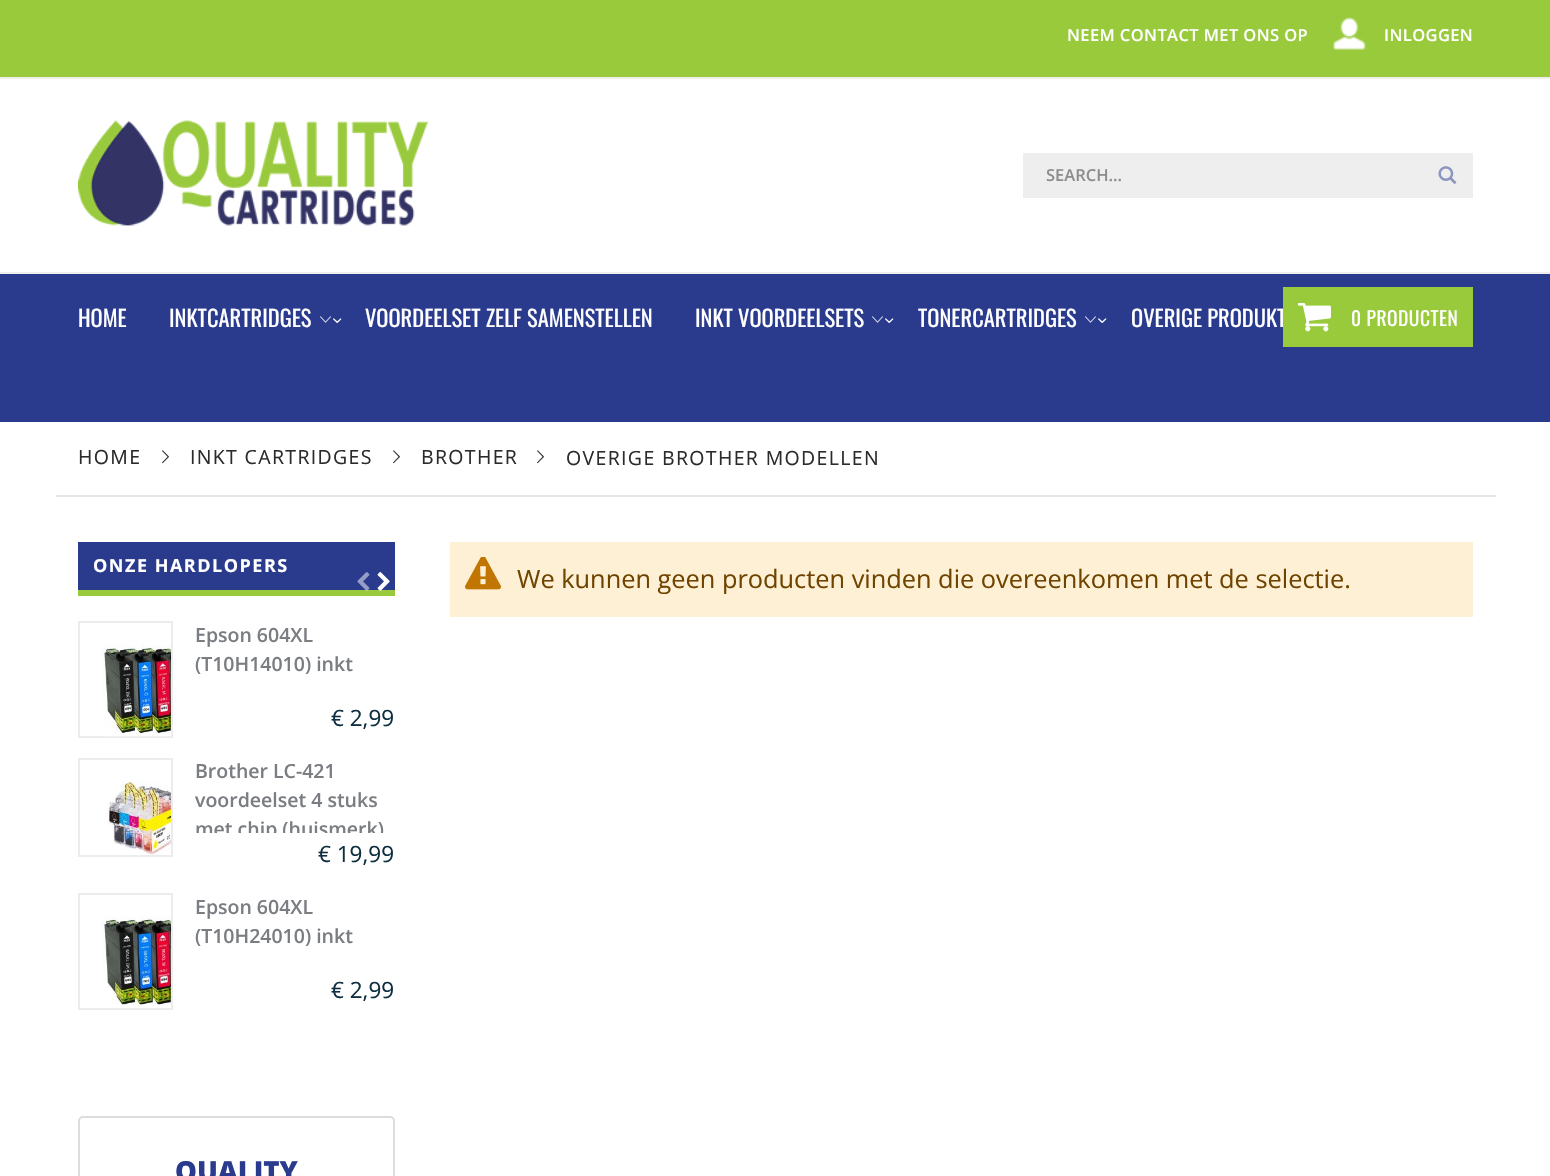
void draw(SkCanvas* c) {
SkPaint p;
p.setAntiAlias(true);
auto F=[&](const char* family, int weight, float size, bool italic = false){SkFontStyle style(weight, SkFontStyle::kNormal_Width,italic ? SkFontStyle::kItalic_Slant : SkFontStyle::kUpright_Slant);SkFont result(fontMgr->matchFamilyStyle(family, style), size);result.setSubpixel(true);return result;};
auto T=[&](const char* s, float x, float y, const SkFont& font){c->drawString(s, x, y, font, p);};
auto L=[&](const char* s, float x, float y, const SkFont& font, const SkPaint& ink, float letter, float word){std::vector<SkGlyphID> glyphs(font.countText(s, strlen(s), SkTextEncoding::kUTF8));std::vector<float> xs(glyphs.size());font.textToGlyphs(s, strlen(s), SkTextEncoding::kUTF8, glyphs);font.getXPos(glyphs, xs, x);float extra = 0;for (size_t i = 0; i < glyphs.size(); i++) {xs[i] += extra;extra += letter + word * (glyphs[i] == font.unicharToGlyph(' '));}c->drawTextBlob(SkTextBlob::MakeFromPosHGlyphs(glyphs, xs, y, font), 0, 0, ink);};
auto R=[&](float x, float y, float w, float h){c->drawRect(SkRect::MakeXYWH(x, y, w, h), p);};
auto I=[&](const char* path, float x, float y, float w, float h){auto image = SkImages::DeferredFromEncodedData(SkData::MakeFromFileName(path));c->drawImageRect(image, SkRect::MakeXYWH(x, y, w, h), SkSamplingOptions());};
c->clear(0xffffffff);
p.setColor(0xff99ca3c);
R(0,0,1550,77);
p.setColor(0xffeeeeee);
R(0,77,1550,2);
auto f1 = F("Open Sans",600,16.5);
p.setColor(0xffffffff);
L("NEEM CONTACT MET ONS OP",1067,41,f1,p,.4,0);
I("1.png",1333,17,33,33);
L("INLOGGEN",1384,41,f1,p,.4,0);
I("2.png",78,120,351,106);
p.setColor(0xffeeeeee);
R(1023,153,450,45);
p.setColor(0xff8d8d8d);
T("SEARCH...",1046,181,f1);
I("3.png",1438,166,19,19);
p.setColor(0xff2a3b8e);
R(0,274,1550,148);
auto f2 = F("Oswald",400,22.5);
p.setColor(0xffffffff);
T("OVERIGE PRODUKT",1131,327,f2);
p.setColor(0xff99ca3c);
R(1283,287,190,60);
I("4.png",1298,303,33,29);
auto f3 = F("Oswald",400,19.5);
p.setColor(0xffffffff);
L("0 PRODUCTEN",1351,326,f3,p,.5,0);
p.setColor(0xffeeeeee);
R(0,272,1550,2);
p.setColor(0xffffffff);
T("HOME",78,327,f2);
T("INKTCARTRIDGES",169,327,f2);
I("5.png",320,316,11,7);
I("6.png",333,318,9,5);
T("VOORDEELSET ZELF SAMENSTELLEN",365,327,f2);
T("INKT VOORDEELSETS",695,327,f2);
I("5.png",872,316,11,7);
I("6.png",885,318,9,5);
T("TONERCARTRIDGES",918,327,f2);
I("5.png",1085,316,11,7);
I("6.png",1098,318,9,5);
p.setColor(0xffe6e6e6);
R(56,495,1440,2);
auto f4 = F("Open Sans",400,19.5);
p.setColor(0xff2b2b2d);
L("HOME",78,464,f4,p,1.35,0);
I("7.png",162,450,7,14);
L("INKT CARTRIDGES",190,464,f4,p,1.35,0);
I("7.png",393,450,7,14);
L("BROTHER",421,464,f4,p,1.35,0);
I("7.png",537,450,7,14);
L("OVERIGE BROTHER MODELLEN",566,465,f4,p,1.35,0);
p.setColor(0xff2a3b8e);
R(78,542,317,48);
p.setColor(0xff99ca3c);
R(78,590,317,6);
auto f5 = F("Open Sans",700,18);
p.setColor(0xffffffff);
L("ONZE HARDLOPERS",93,572,f5,p,1.5,0);
I("8.png",357,572,13,19);
I("9.png",377,572,13,19);
p.setStroke(true);
p.setStrokeWidth(2);
p.setColor(0xffececec);
c->drawRect(SkRect::MakeXYWH(79,622,93,115),p);
I("10.png",102,645,69,92);
auto f6 = F("Open Sans",600,19.5);
p.setStroke(false);
p.setColor(0xff7a7d82);
T("Epson 604XL",195,642,f6);
T("(T10H14010) inkt",195,671,f6);
auto f7 = F("Open Sans",400,22.5);
p.setColor(0xff0e2f40);
T("€ 2,99",331,726,f7);
p.setStroke(true);
p.setColor(0xffececec);
c->drawRect(SkRect::MakeXYWH(79,759,93,97),p);
I("11.png",107,781,64,74);
p.setStroke(false);
p.setColor(0xff7a7d82);
T("Brother LC-421",195,778,f6);
T("voordeelset 4 stuks",195,807,f6);
c->save();
c->clipRect(SkRect::MakeXYWH(195,758,200,75));
T("met chip (huismerk)",195,836,f6);
c->restore();
p.setColor(0xff0e2f40);
T("€ 19,99",318,862,f7);
p.setStroke(true);
p.setColor(0xffececec);
c->drawRect(SkRect::MakeXYWH(79,894,93,115),p);
I("12.png",102,916,69,89);
p.setStroke(false);
p.setColor(0xff7a7d82);
T("Epson 604XL",195,914,f6);
T("(T10H24010) inkt",195,943,f6);
p.setColor(0xff0e2f40);
T("€ 2,99",331,998,f7);
p.setStroke(true);
p.setColor(0xffdddddd);
c->drawRoundRect(SkRect::MakeXYWH(79,1117,315,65),4,4,p);
auto f8 = F("Open Sans",800,27.5);
p.setStroke(false);
p.setColor(0xff2a3b8e);
T("QUALITY",175,1181,f8);
p.setColor(0xfffdf0d5);
R(450,542,1023,75);
I("13.png",465,557,36,33);
auto f9 = F("Open Sans",400,25.35);
p.setColor(0xff6f4400);
T("We kunnen geen producten vinden die overeenkomen met de selectie.",517,588,f9);
}
